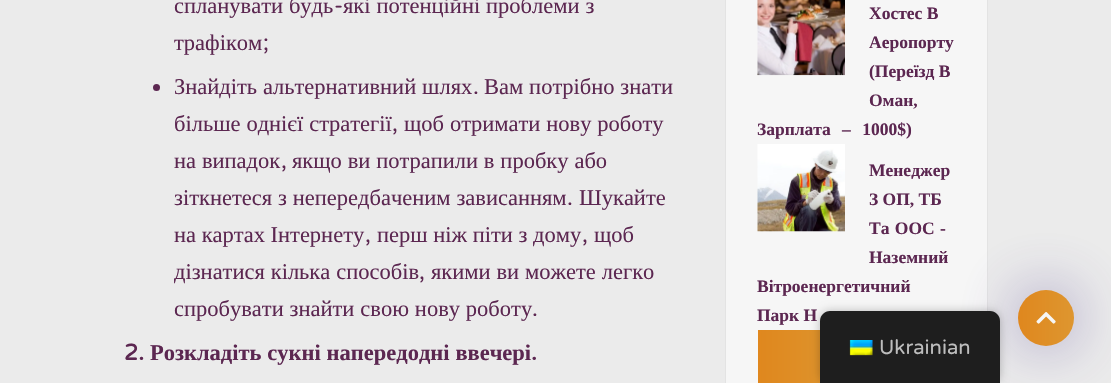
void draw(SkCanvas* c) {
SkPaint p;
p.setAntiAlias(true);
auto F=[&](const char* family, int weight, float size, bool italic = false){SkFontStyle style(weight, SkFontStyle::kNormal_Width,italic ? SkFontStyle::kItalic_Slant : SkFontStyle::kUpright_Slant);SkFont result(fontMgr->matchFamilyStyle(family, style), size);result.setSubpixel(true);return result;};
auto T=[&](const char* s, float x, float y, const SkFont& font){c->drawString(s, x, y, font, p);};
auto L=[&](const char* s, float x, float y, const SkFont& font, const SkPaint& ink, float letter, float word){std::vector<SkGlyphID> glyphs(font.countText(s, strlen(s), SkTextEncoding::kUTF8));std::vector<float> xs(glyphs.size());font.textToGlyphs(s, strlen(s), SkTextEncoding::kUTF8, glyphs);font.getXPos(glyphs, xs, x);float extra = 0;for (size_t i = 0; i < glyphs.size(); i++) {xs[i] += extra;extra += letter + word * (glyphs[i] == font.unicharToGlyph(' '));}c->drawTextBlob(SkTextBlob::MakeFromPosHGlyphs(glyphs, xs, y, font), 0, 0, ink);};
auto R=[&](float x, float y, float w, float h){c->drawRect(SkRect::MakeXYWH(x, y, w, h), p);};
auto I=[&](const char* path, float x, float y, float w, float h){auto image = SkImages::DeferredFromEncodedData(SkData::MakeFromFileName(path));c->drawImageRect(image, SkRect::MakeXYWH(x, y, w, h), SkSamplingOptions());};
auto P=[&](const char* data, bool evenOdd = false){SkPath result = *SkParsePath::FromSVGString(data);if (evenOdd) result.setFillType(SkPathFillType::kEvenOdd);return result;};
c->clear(0xffebebeb);
auto f1 = F("Liberation Serif",400,22.5);
p.setColor(0xff5c2751);
L("спланувати будь",174,13,f1,p,0,.25);
auto f2 = F("Varela Round",400,22.5);
T("-",334,13,f2);
L("які потенційні проблеми з",343,13,f1,p,0,.25);
T("трафіком",174,50,f1);
T(";",263,50,f2);
c->drawCircle(156.5,87.5,3.5,p);
L("Знайдіть альтернативний шлях",174,94,f1,p,0,.25);
L("Вам потрібно знати",484,94,f1,p,0,.25);
T(".",473,94,f2);
L("більше однієї стратегії",174,131,f1,p,0,.25);
T(",",392,131,f2);
L("щоб отримати нову роботу",404,131,f1,p,0,.25);
L("на випадок",174,168,f1,p,0,.25);
T(",",281,168,f2);
L("якщо ви потрапили в пробку або",292,168,f1,p,0,.25);
L("зіткнетеся з непередбаченим зависанням",174,205,f1,p,0,.25);
T(".",567,205,f2);
T("Шукайте",579,205,f1);
T("на картах Інтернету",174,242,f1);
T(",",365,242,f2);
T("перш ніж піти з дому",377,242,f1);
T(",",582,242,f2);
T("щоб",594,242,f1);
L("дізнатися кілька способів",174,279,f1,p,0,.25);
T(",",419,279,f2);
L("якими ви можете легко",431,279,f1,p,0,.25);
L("спробувати знайти свою нову роботу",174,316,f1,p,0,.25);
T(".",532,316,f2);
auto f3 = F("Varela Round",700,22.5);
T("2.",124,360,f3);
auto f4 = F("Liberation Serif",700,22.5);
L("Розкладіть сукні напередодні ввечері",150,360,f4,p,0,.25);
T(".",531,360,f3);
p.setColor(0xfff6f6f6);
c->drawRect(SkRect::MakeXYWH(725.5,-.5,262,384),p);
p.setStroke(true);
p.setStrokeWidth(1);
p.setColor(0xffe3e3e3);
c->drawRect(SkRect::MakeXYWH(725.5,-.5,262,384),p);
I("1.png",757,0,88,76);
auto f5 = F("Liberation Serif",700,17.5);
p.setStroke(false);
p.setColor(0xff5c2751);
T("Хостес В",869,19,f5);
T("Аеропорту",869,48,f5);
T("(Переїзд В",869,77,f5);
T("Оман,",869,106,f5);
L("Зарплата – 1000$)",757,135,f5,p,0,7);
I("2.png",757,144,88,88);
T("Менеджер",869,176,f5);
T("З ОП, ТБ",869,205,f5);
L("Та ООС -",869,234,f5,p,0,1);
T("Наземний",869,263,f5);
T("Вітроенергетичний",757,292,f5);
T("Парк Н",757,321,f5);
{
const SkColor colors[] = {0xffe0841a,0xffdd9933};
const float stops[] = {0,1};
const SkPoint ends[] = {{740,374}, {863,374}};
p.setShader(SkGradientShader::MakeLinear(ends, colors, stops, 2, SkTileMode::kClamp));
p.setAlpha(255);
}
R(758,330,62,53);
p.setShader(nullptr);
p.setColor(0x80443088);
p.setMaskFilter(SkMaskFilter::MakeBlur(kNormal_SkBlurStyle, 31));
c->drawRoundRect(SkRect::MakeXYWH(1018,290,56,56),28,28,p);
p.setMaskFilter(nullptr);
{
const SkColor colors[] = {0xffe0841a,0xffdd9933};
const float stops[] = {0,1};
const SkPoint ends[] = {{1006,318}, {1085,318}};
p.setShader(SkGradientShader::MakeLinear(ends, colors, stops, 2, SkTileMode::kClamp));
p.setAlpha(255);
}
c->drawCircle(1046,318,28,p);
I("3.png",1036,312,20,12);
p.setShader(nullptr);
p.setColor(0x40000000);
p.setMaskFilter(SkMaskFilter::MakeBlur(kNormal_SkBlurStyle, 5));
c->drawRoundRect(SkRect::MakeXYWH(820,311,180,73),10,10,p);
p.setMaskFilter(nullptr);
p.setColor(0xff1e1e1e);
c->drawPath(P("M830 311h160c5.5 0 10 4.5 10 10v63h-180v-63c0-5.5 4.5-10 10-10z"),p);
I("4.png",849,340,24,16);
auto f6 = F("Varela Round",400,20.25);
p.setColor(0xffbdbdbd);
T("Ukrainian",879,354,f6);
}
